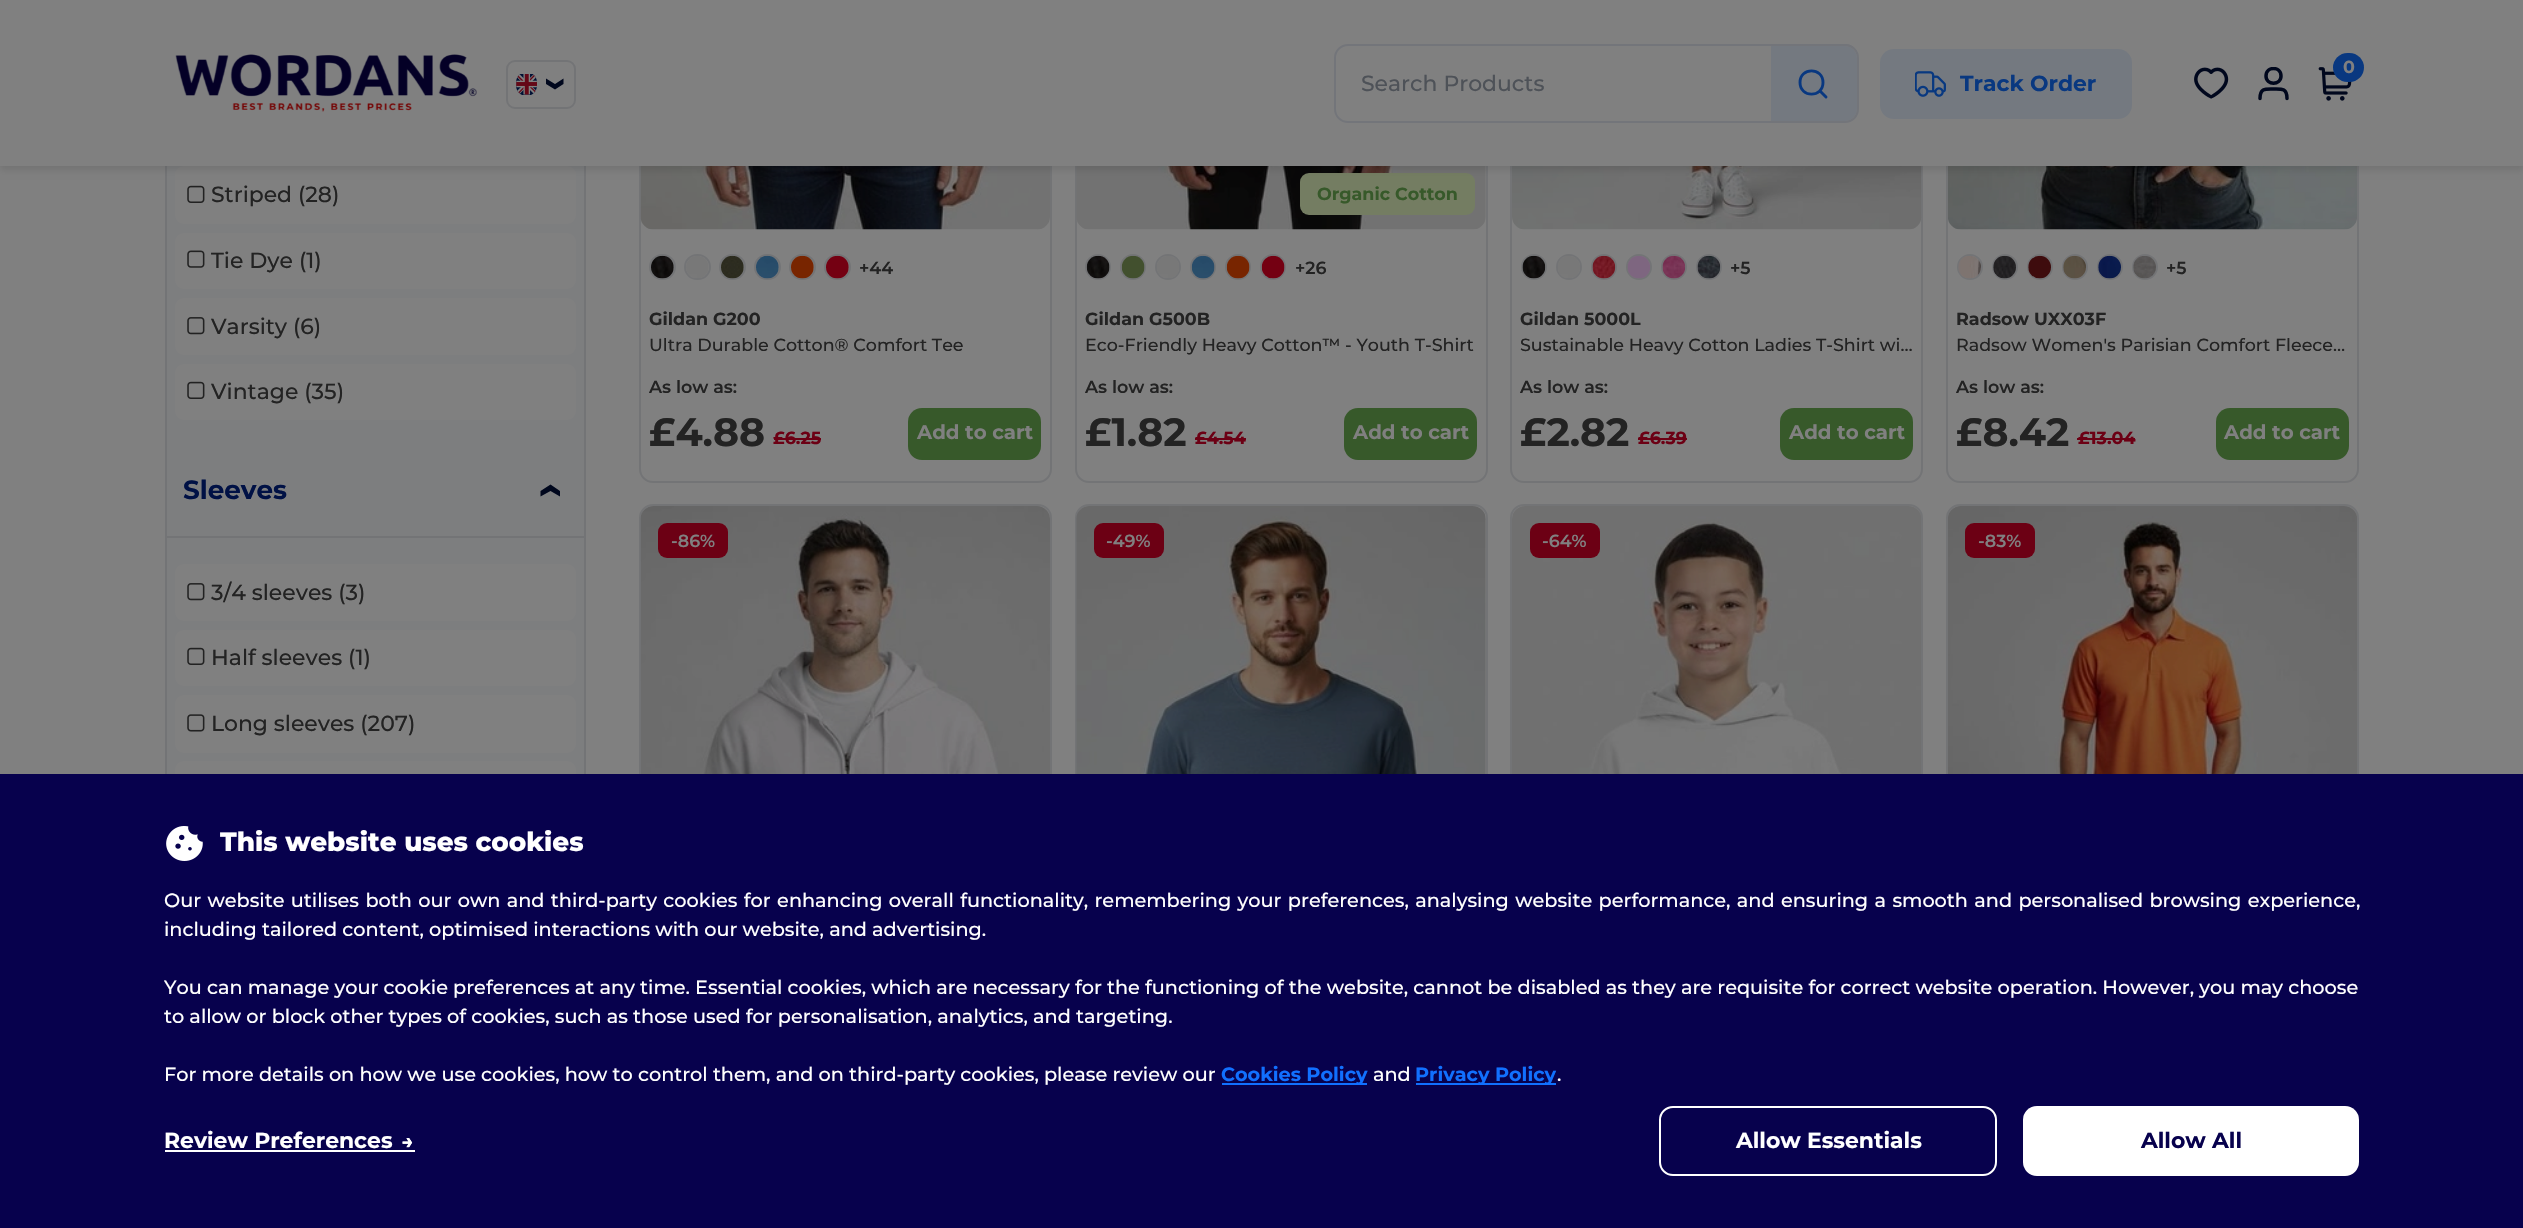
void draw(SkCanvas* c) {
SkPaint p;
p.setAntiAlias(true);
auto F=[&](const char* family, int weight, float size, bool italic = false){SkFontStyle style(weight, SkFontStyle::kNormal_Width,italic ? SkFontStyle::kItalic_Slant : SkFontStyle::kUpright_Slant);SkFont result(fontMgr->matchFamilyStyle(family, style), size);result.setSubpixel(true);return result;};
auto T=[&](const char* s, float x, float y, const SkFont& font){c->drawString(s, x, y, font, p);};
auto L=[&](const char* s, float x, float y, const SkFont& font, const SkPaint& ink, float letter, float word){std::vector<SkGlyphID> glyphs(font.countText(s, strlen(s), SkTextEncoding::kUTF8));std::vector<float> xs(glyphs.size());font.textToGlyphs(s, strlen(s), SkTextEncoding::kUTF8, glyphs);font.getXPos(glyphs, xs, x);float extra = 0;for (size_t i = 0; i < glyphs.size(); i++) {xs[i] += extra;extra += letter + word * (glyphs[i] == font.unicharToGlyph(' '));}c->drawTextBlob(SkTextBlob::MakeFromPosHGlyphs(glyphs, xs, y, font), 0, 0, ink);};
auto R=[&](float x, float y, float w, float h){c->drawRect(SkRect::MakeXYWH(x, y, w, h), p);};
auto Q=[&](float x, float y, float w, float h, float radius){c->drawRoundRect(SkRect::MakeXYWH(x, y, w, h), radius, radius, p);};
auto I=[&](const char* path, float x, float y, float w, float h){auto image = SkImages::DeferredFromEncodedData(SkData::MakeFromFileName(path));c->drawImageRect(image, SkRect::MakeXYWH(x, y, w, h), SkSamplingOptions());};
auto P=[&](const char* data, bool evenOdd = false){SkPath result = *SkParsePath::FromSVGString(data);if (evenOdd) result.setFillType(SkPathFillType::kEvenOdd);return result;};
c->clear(0xff808080);
p.setColor(0xff7d7e7f);
R(167,166,417,608);
p.setStroke(true);
p.setStrokeWidth(2);
p.setColor(0xff737476);
c->drawRect(SkRect::MakeXYWH(166,-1,419,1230),p);
p.setStroke(false);
p.setColor(0xff808080);
Q(175,166,401,58,9);
p.setStroke(true);
p.setColor(0xff737476);
c->drawRoundRect(SkRect::MakeXYWH(640,-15,411,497),13,13,p);
I("10.png",640,166,410,64);
c->drawRoundRect(SkRect::MakeXYWH(1076,-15,411,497),13,13,p);
I("17.png",1076,166,410,64);
p.setStroke(false);
p.setColor(0xff747d62);
Q(1300,173,175,42,9);
p.setStroke(true);
p.setColor(0xff737476);
c->drawRoundRect(SkRect::MakeXYWH(1511,-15,411,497),13,13,p);
I("24.png",1512,166,410,64);
c->drawRoundRect(SkRect::MakeXYWH(1947,-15,411,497),13,13,p);
I("31.png",1948,166,409,64);
p.setStroke(false);
p.setColor(0x1a000000);
p.setMaskFilter(SkMaskFilter::MakeBlur(kNormal_SkBlurStyle, 3.5));
c->drawRect(SkRect::MakeXYWH(0,4,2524,166),p);
p.setMaskFilter(nullptr);
p.setColor(0xff808080);
R(0,0,2523,166);
I("1.png",175,54,302,58);
p.setStroke(true);
p.setColor(0xff737476);
c->drawRoundRect(SkRect::MakeXYWH(507,61,68,47),8,8,p);
I("2.png",516,74,21,21);
p.setStroke(false);
p.setColor(0xff00071d);
c->drawPath(P("M546 78.5v5.5l9 5.5l8.5-5.5v-5.5l-8.5 5.5z",true),p);
I("3.png",2194,67,35,32);
c->save();
c->clipRect(SkRect::MakeXYWH(2258,67,31,35));
p.setStroke(true);
p.setStrokeWidth(3.5);
p.setStrokeCap(SkPaint::kRound_Cap);
p.setStrokeJoin(SkPaint::kRound_Join);
c->drawPath(P("M2287 98.5c0-10.5-5.5-9.5-13.5-9.5c-8 0-13.5-1-13.5 9.5m21-22.5c0 9.5-15 9.5-15 0c0-10 15-10 15 0z"),p);
c->restore();
I("4.png",2318,67,35,34);
p.setStroke(false);
p.setColor(0xff093880);
Q(2333,53,31,29,14.5);
auto f1 = F("Montserrat",700,17.5);
p.setColor(0xff808080);
T("0",2343,73,f1);
p.setStroke(true);
p.setStrokeWidth(2);
p.setStrokeCap(SkPaint::kButt_Cap);
p.setStrokeJoin(SkPaint::kMiter_Join);
p.setColor(0xff73757a);
c->drawRoundRect(SkRect::MakeXYWH(1335,45,523,77),13,13,p);
auto f2 = F("Montserrat",500,21.9);
p.setStroke(false);
p.setColor(0xff4e5258);
T("Search Products",1361,91,f2);
p.setColor(0xff747980);
c->drawPath(P("M1771 46h74c6.5 0 12 5.5 12 12v51c0 6.5-5.5 12-12 12h-74z"),p);
p.setColor(0xff73757a);
c->drawPath(P("M1771 44h74c8 0 13 6 13 13v52c0 8-5 13-13 13h-74zm0 2h74c7 0 12 5 12 11v52c0 7-5 12-12 12h-74z",true),p);
p.setStroke(true);
p.setStrokeWidth(2.9);
p.setStrokeCap(SkPaint::kRound_Cap);
p.setStrokeJoin(SkPaint::kRound_Join);
p.setColor(0xff093880);
c->drawPath(P("M1826 97l-6-6m3-8.5c0 15.5-23 15.5-23 0c0-15.5 23-15.5 23 0z"),p);
p.setStroke(false);
p.setColor(0xff747980);
Q(1880,49,252,70,14);
I("5.png",1915,71,31,26);
auto f3 = F("Montserrat",700,21.9);
p.setColor(0xff093880);
T("Track Order",1960,91,f3);
I("6.png",187,185,18,18);
p.setColor(0xff232323);
T("Striped (28)",211,202,f2);
p.setColor(0xff808080);
Q(175,233,401,56,9);
I("7.png",187,250,18,18);
p.setColor(0xff232323);
T("Tie Dye (1)",211,268,f2);
p.setColor(0xff808080);
Q(175,298,401,57,9);
I("8.png",187,317,18,18);
p.setColor(0xff232323);
T("Varsity (6)",211,334,f2);
p.setColor(0xff808080);
Q(175,364,401,56,9);
I("6.png",187,381,18,18);
p.setColor(0xff232323);
T("Vintage (35)",211,399,f2);
auto f4 = F("Montserrat",700,26.25);
p.setColor(0xff001145);
T("Sleeves",183,499,f4);
p.setColor(0xff00071d);
c->drawPath(P("M560 496.5v-5.5l-9.5-6.5l-10 6.5v5.5l10-5.5z",true),p);
p.setColor(0xff737476);
R(166,536,419,2);
p.setColor(0xff808080);
Q(175,564,401,57,9);
I("8.png",187,583,18,18);
p.setColor(0xff232323);
T("3/4 sleeves (3)",211,600,f2);
p.setColor(0xff808080);
Q(175,630,401,56,9);
I("6.png",187,647,18,18);
p.setColor(0xff232323);
T("Half sleeves (1)",211,665,f2);
p.setColor(0xff808080);
Q(175,695,401,58,9);
I("9.png",187,714,18,18);
p.setColor(0xff232323);
T("Long sleeves (207)",211,731,f2);
p.setColor(0xff808080);
Q(175,761,401,56,9);
p.setStroke(true);
p.setStrokeWidth(2);
p.setStrokeCap(SkPaint::kButt_Cap);
p.setStrokeJoin(SkPaint::kMiter_Join);
p.setColor(0xff737476);
c->drawRoundRect(SkRect::MakeXYWH(650,255,25,24),12,12,p);
I("11.png",651,255,23,24);
c->drawRoundRect(SkRect::MakeXYWH(685,255,25,24),12,12,p);
I("12.png",686,256,23,22);
c->drawRoundRect(SkRect::MakeXYWH(720,255,25,24),12,12,p);
I("13.png",721,255,23,24);
c->drawRoundRect(SkRect::MakeXYWH(755,255,25,24),12,12,p);
I("14.png",756,255,23,24);
c->drawRoundRect(SkRect::MakeXYWH(790,255,25,24),12,12,p);
I("15.png",791,255,23,24);
c->drawRoundRect(SkRect::MakeXYWH(825,255,25,24),12,12,p);
I("16.png",826,255,23,24);
auto f5 = F("Montserrat",600,17.5);
p.setStroke(false);
p.setColor(0xff232323);
T("+44",859,274,f5);
T("Gildan G200",649,325,f1);
auto f6 = F("Montserrat",500,17.5);
T("Ultra Durable Cotton® Comfort Tee",649,351,f6);
T("As low as:",649,393,f5);
auto f7 = F("Montserrat",700,39.5);
T("£4.88",649,446,f7);
p.setColor(0xff6c0014);
T("£6.25",773,444,f1);
R(774,438,47,2);
p.setColor(0xff37592a);
Q(908,408,133,52,14);
auto f8 = F("Montserrat",700,19.75);
p.setColor(0xff808080);
T("Add to cart",917,439,f8);
p.setColor(0xff37592a);
T("Organic Cotton",1317,200,f1);
p.setStroke(true);
p.setColor(0xff737476);
c->drawCircle(1098,267,12,p);
I("18.png",1086,255,24,24);
c->drawCircle(1133,267,12,p);
I("19.png",1121,255,24,24);
c->drawCircle(1168,267,12,p);
I("20.png",1157,256,22,22);
c->drawCircle(1203,267,12,p);
I("21.png",1191,255,24,24);
c->drawCircle(1238,267,12,p);
I("22.png",1226,255,24,24);
c->drawCircle(1273,267,12,p);
I("23.png",1261,255,24,24);
p.setStroke(false);
p.setColor(0xff232323);
T("+26",1295,274,f5);
T("Gildan G500B",1085,325,f1);
T("Eco-Friendly Heavy Cotton™ - Youth T-Shirt",1085,351,f6);
T("As low as:",1085,393,f5);
T("£1.82",1085,446,f7);
p.setColor(0xff6c0014);
T("£4.54",1195,444,f1);
R(1195,438,51,2);
p.setColor(0xff37592a);
Q(1344,408,133,52,14);
p.setColor(0xff808080);
T("Add to cart",1353,439,f8);
p.setStroke(true);
p.setColor(0xff737476);
c->drawCircle(1534,267,12,p);
I("25.png",1522,255,24,24);
c->drawCircle(1569,267,12,p);
I("26.png",1558,256,22,22);
c->drawCircle(1604,267,12,p);
I("27.png",1592,255,24,24);
c->drawCircle(1639,267,12,p);
I("28.png",1627,256,23,23);
c->drawCircle(1674,267,12,p);
I("29.png",1662,255,24,24);
c->drawCircle(1709,267,12,p);
I("30.png",1697,255,24,24);
p.setStroke(false);
p.setColor(0xff232323);
T("+5",1730,274,f5);
T("Gildan 5000L",1520,325,f1);
T("Sustainable Heavy Cotton Ladies T-Shirt wi…",1520,351,f6);
T("As low as:",1520,393,f5);
T("£2.82",1520,446,f7);
p.setColor(0xff6c0014);
T("£6.39",1638,444,f1);
R(1638,438,49,2);
p.setColor(0xff37592a);
Q(1780,408,133,52,14);
p.setColor(0xff808080);
T("Add to cart",1789,439,f8);
p.setStroke(true);
p.setColor(0xff737476);
c->drawCircle(1970,267,12,p);
I("32.png",1958,256,23,23);
c->drawCircle(2005,267,12,p);
I("33.png",1993,255,23,24);
c->drawCircle(2040,267,12,p);
I("34.png",2028,255,23,24);
c->drawCircle(2075,267,12,p);
I("35.png",2063,255,23,24);
c->drawCircle(2110,267,12,p);
I("36.png",2098,255,23,24);
c->drawCircle(2145,267,12,p);
I("37.png",2133,256,23,23);
p.setStroke(false);
p.setColor(0xff232323);
T("+5",2166,274,f5);
T("Radsow UXX03F",1956,325,f1);
T("Radsow Women's Parisian Comfort Fleece…",1956,351,f6);
T("As low as:",1956,393,f5);
T("£8.42",1956,446,f7);
p.setColor(0xff6c0014);
T("£13.04",2078,444,f1);
R(2077,438,58,2);
p.setColor(0xff37592a);
Q(2216,408,133,52,14);
p.setColor(0xff808080);
T("Add to cart",2224,439,f8);
p.setStroke(true);
p.setColor(0xff737476);
c->drawRoundRect(SkRect::MakeXYWH(640,505,411,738),13,13,p);
I("38.png",640,506,410,268);
p.setStroke(false);
p.setColor(0xff6c0014);
Q(658,523,70,35,9);
p.setColor(0xff808080);
T("-86%",671,547,f5);
p.setStroke(true);
p.setColor(0xff737476);
c->drawRoundRect(SkRect::MakeXYWH(1076,505,411,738),13,13,p);
I("39.png",1076,506,410,268);
p.setStroke(false);
p.setColor(0xff6c0014);
Q(1094,523,70,35,9);
p.setColor(0xff808080);
T("-49%",1106,547,f5);
p.setStroke(true);
p.setColor(0xff737476);
c->drawRoundRect(SkRect::MakeXYWH(1511,505,411,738),13,13,p);
I("40.png",1512,506,409,268);
p.setStroke(false);
p.setColor(0xff6c0014);
Q(1530,523,70,35,9);
p.setColor(0xff808080);
T("-64%",1542,547,f5);
p.setStroke(true);
p.setColor(0xff737476);
c->drawRoundRect(SkRect::MakeXYWH(1947,505,411,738),13,13,p);
I("41.png",1948,506,409,268);
p.setStroke(false);
p.setColor(0xff6c0014);
Q(1965,523,70,35,9);
p.setColor(0xff808080);
T("-83%",1978,547,f5);
p.setColor(0xff07014d);
R(0,774,2523,454);
I("42.png",166,826,37,35);
auto f9 = F("Montserrat",800,26.25);
p.setColor(0xffffffff);
T("This website uses cookies",220,851,f9);
auto f10 = F("Montserrat",500,19.25);
L("Our website utilises both our own and third-party cookies for enhancing overall functionality, remembering your preferences, analysing website performance, and ensuring a smooth and personalised browsing experience,",164,907,f10,p,0,1.2);
T("including tailored content, optimised interactions with our website, and advertising.",164,936,f10);
T("You can manage your cookie preferences at any time. Essential cookies, which are necessary for the functioning of the website, cannot be disabled as they are requisite for correct website operation. However, you may choose",164,994,f10);
T("to allow or block other types of cookies, such as those used for personalisation, analytics, and targeting.",164,1023,f10);
T("For more details on how we use cookies, how to control them, and on third-party cookies, please review our",164,1081,f10);
p.setColor(0xff1170ff);
R(1222,1083,145,2);
auto f11 = F("Montserrat",700,19.25);
T("Cookies Policy",1221,1081,f11);
p.setColor(0xffffffff);
T("and",1373,1081,f10);
p.setColor(0xff1170ff);
R(1416,1083,140,2);
T("Privacy Policy",1415,1081,f11);
p.setColor(0xffffffff);
T(".",1557,1081,f10);
T("Review Preferences",164,1148,f3);
I("43.png",402,1138,11,10);
R(165,1150,250,2);
p.setStroke(true);
c->drawRoundRect(SkRect::MakeXYWH(1660,1107,336,68),13,13,p);
p.setStroke(false);
T("Allow Essentials",1736,1148,f3);
Q(2023,1106,336,70,14);
p.setColor(0xff07014d);
T("Allow All",2141,1148,f3);
}
